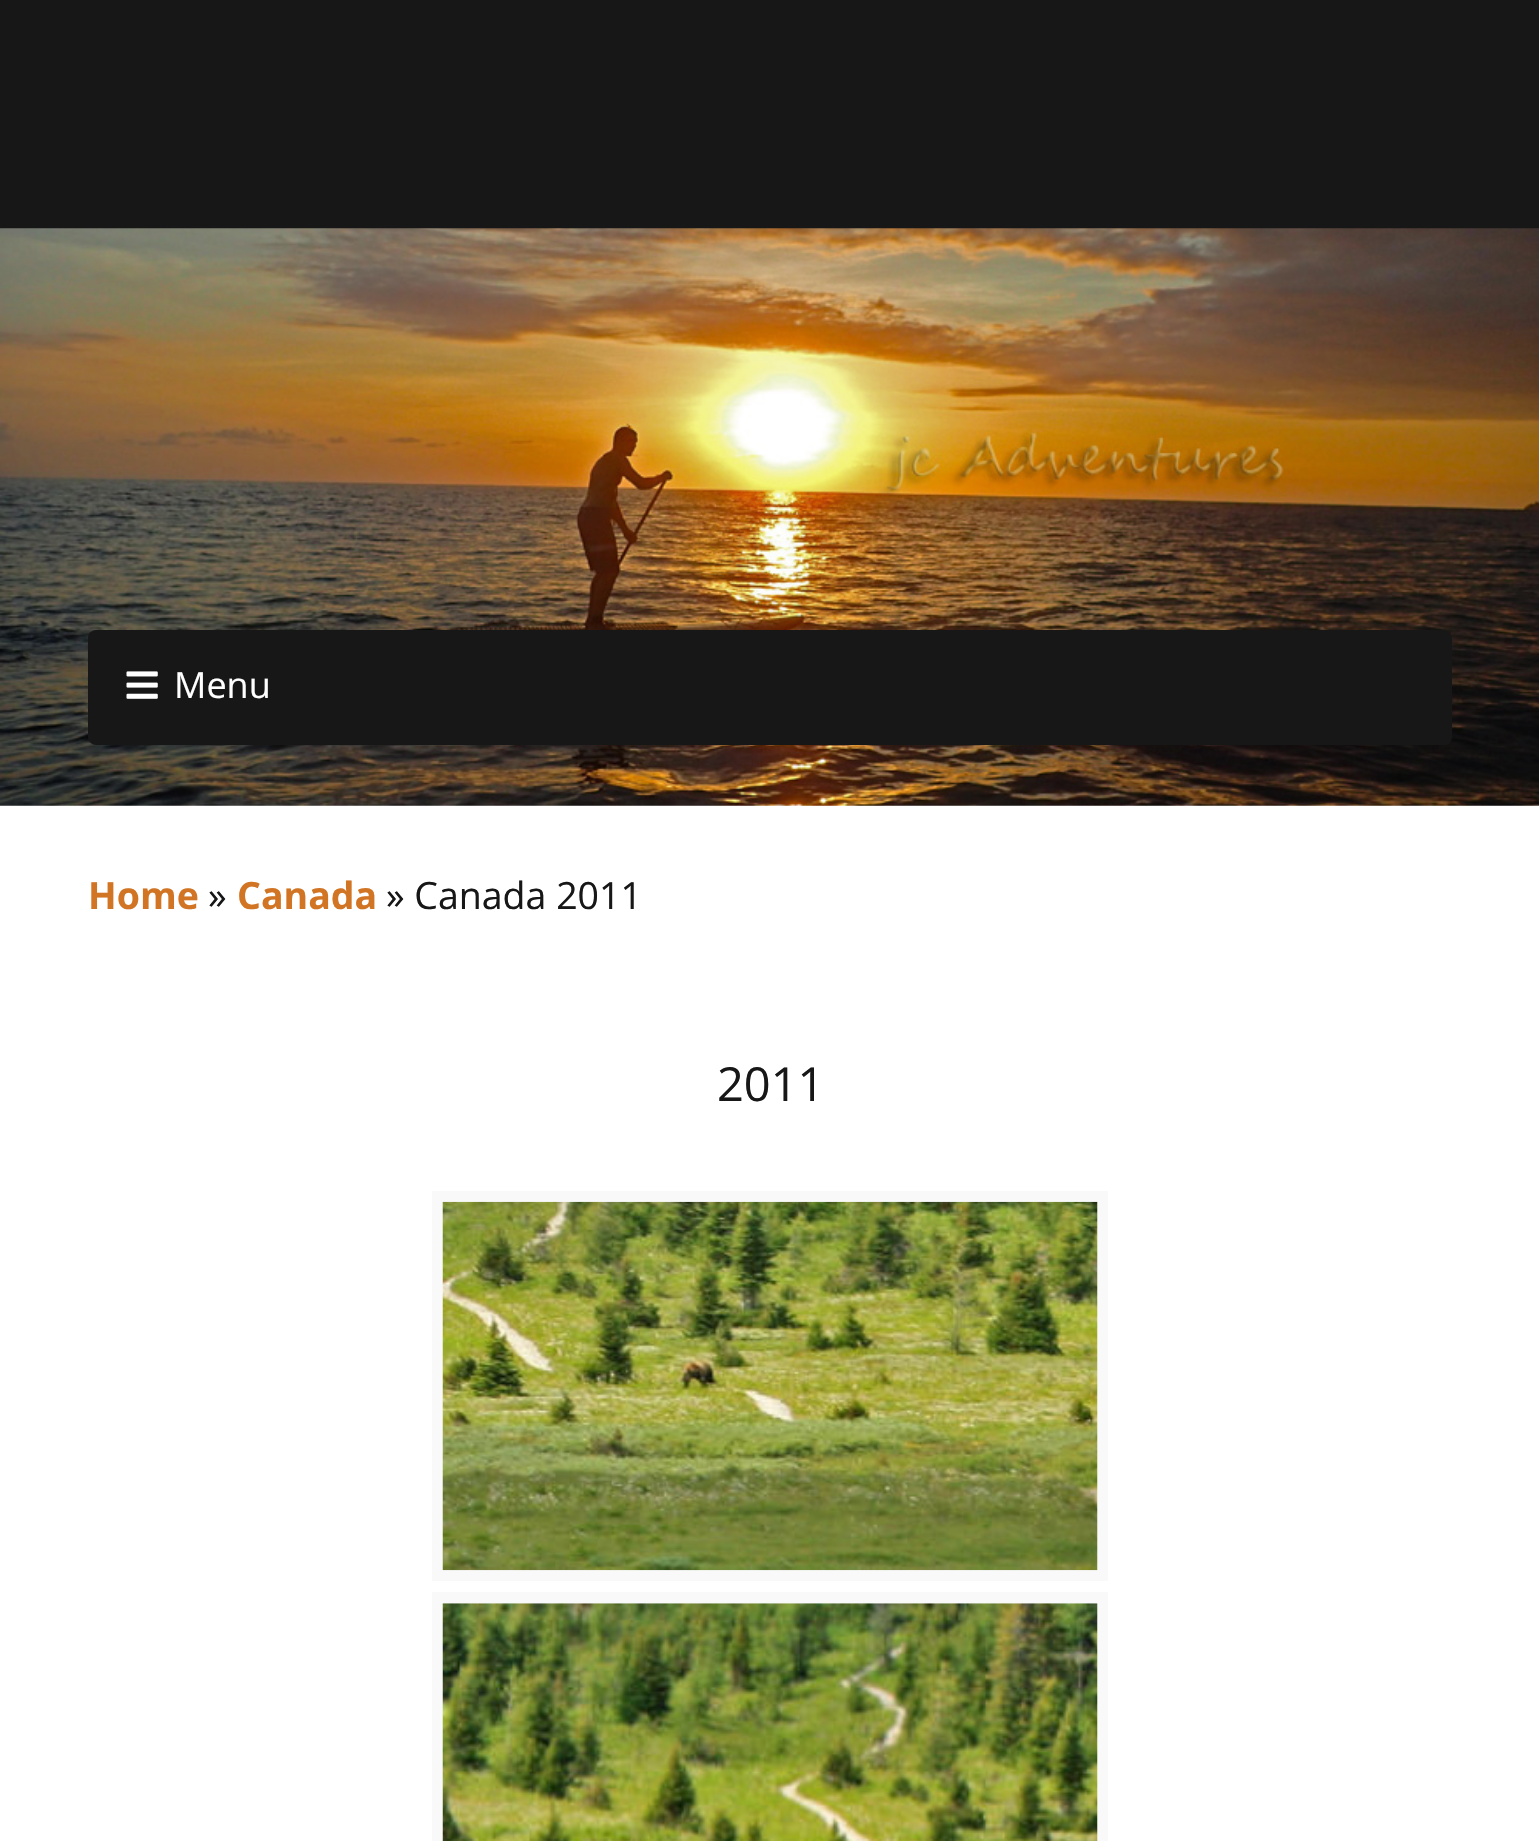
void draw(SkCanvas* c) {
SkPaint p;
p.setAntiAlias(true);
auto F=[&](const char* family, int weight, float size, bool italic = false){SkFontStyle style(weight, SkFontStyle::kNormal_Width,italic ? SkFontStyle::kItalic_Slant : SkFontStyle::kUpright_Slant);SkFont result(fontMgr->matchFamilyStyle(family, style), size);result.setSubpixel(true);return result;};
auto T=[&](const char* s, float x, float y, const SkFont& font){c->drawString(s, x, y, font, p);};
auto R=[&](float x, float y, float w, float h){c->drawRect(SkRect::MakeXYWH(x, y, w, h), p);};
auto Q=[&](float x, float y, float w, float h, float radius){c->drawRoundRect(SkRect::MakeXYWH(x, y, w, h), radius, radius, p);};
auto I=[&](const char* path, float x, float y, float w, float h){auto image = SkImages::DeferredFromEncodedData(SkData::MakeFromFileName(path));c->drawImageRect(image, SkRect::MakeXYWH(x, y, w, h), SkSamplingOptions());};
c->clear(0xffffffff);
p.setColor(0xff171717);
R(0,0,1539,229);
I("1.png",0,228,1539,578);
Q(88,630,1364,115,8);
I("2.png",126,671,32,28);
auto f1 = F("Open Sans",400,36);
p.setColor(0xffffffff);
T("Menu",174,698,f1);
auto f2 = F("Open Sans",700,37.5);
p.setColor(0xffd17423);
T("Home",88,909,f2);
auto f3 = F("Open Sans",400,37.5);
p.setColor(0xff171717);
T("»",208,909,f3);
p.setColor(0xffd17423);
T("Canada",237,909,f2);
p.setColor(0xff171717);
T("» Canada 2011",386,909,f3);
auto f4 = F("Open Sans",400,47);
T("2011",717,1101,f4);
p.setColor(0xfff9f9f9);
R(432,1191,676,390);
I("3.png",442,1201,656,370);
R(432,1592,676,249);
I("4.png",442,1603,656,238);
}
